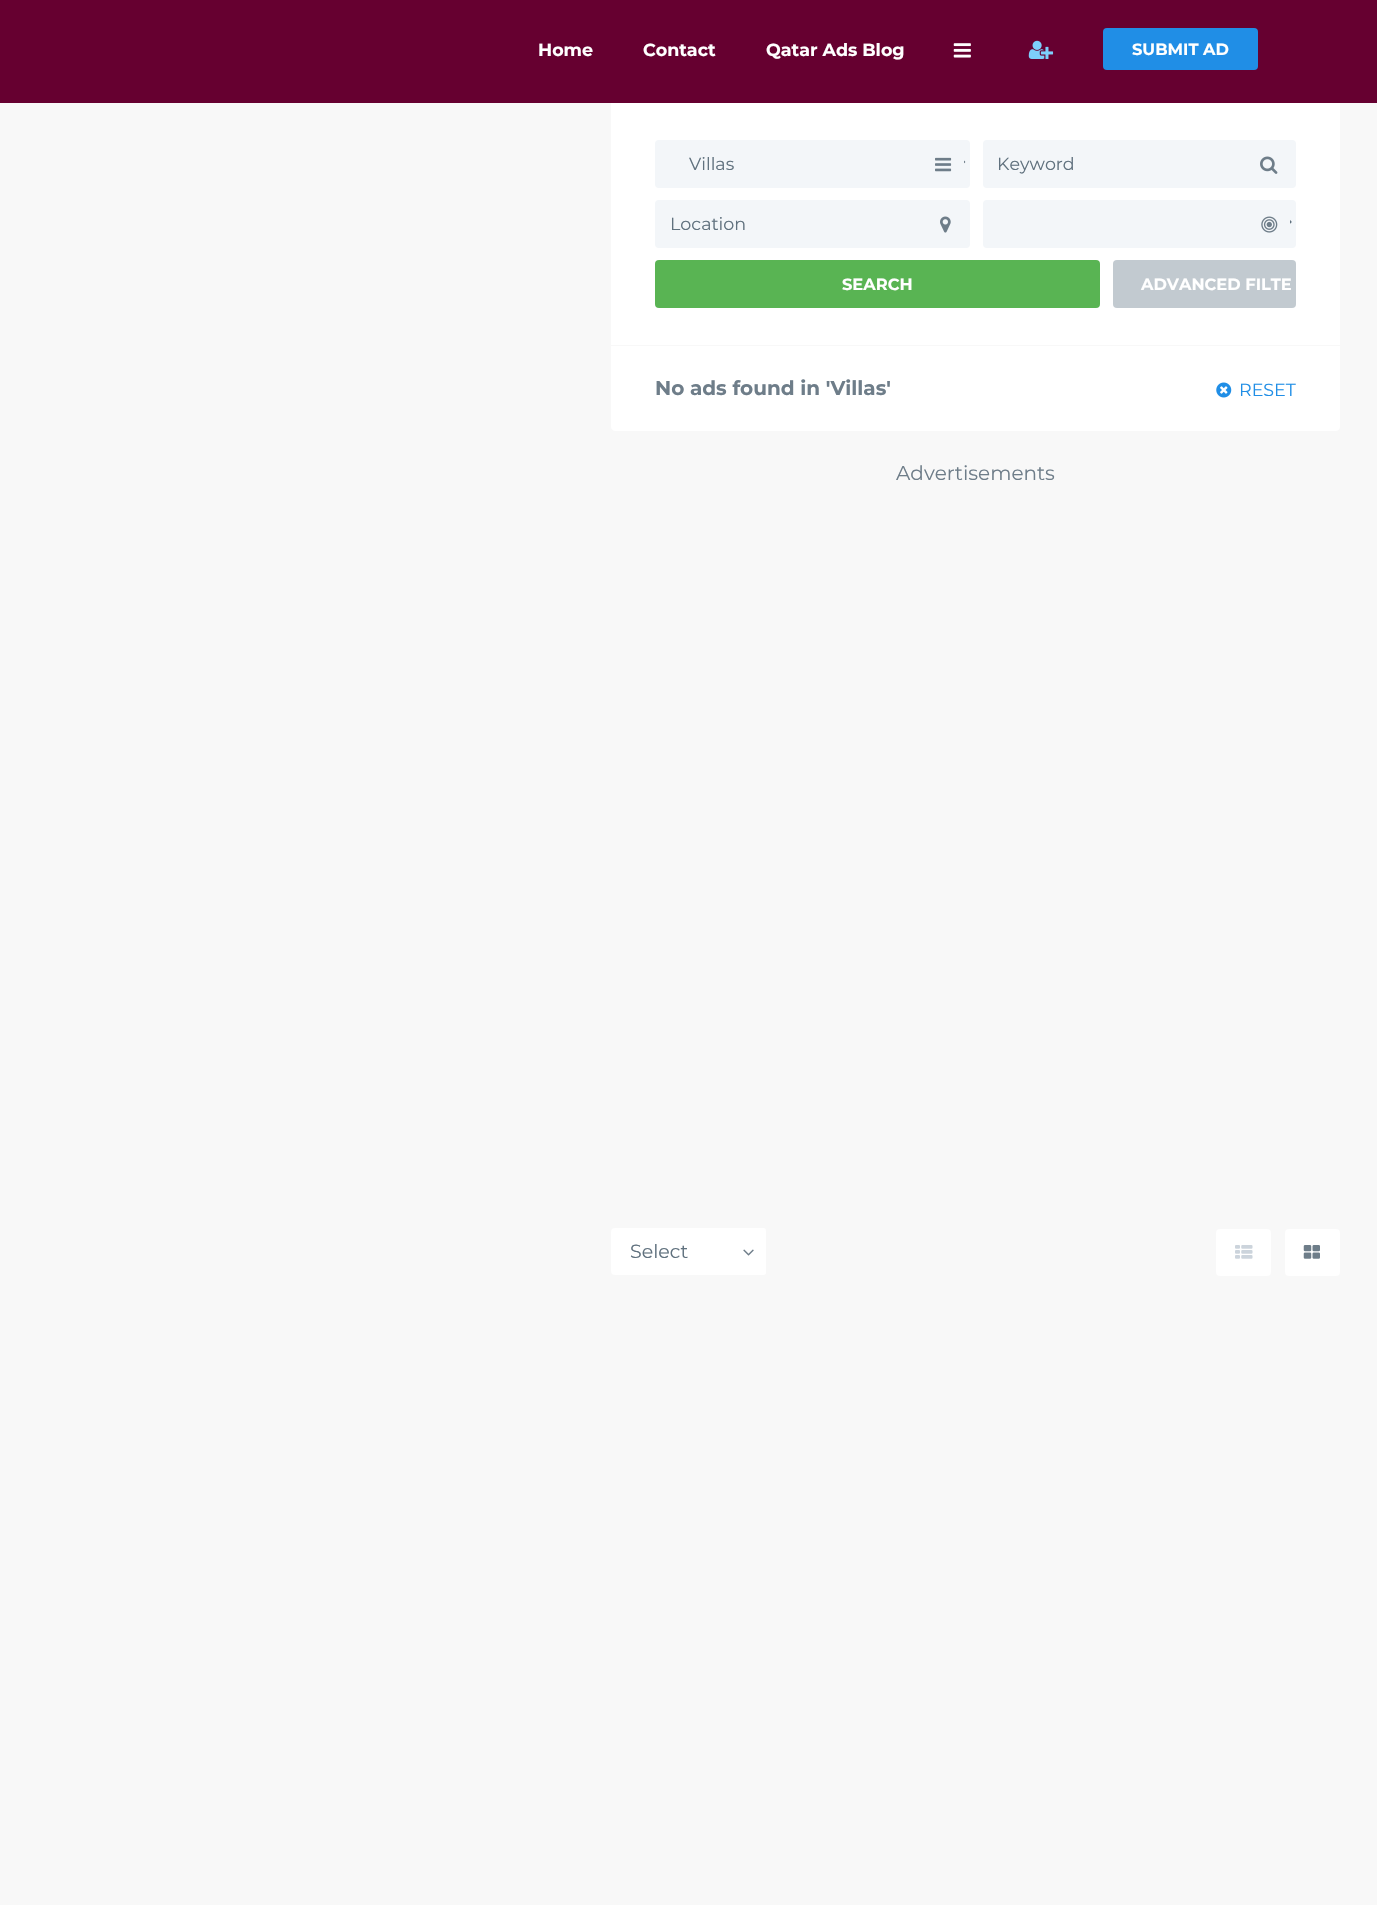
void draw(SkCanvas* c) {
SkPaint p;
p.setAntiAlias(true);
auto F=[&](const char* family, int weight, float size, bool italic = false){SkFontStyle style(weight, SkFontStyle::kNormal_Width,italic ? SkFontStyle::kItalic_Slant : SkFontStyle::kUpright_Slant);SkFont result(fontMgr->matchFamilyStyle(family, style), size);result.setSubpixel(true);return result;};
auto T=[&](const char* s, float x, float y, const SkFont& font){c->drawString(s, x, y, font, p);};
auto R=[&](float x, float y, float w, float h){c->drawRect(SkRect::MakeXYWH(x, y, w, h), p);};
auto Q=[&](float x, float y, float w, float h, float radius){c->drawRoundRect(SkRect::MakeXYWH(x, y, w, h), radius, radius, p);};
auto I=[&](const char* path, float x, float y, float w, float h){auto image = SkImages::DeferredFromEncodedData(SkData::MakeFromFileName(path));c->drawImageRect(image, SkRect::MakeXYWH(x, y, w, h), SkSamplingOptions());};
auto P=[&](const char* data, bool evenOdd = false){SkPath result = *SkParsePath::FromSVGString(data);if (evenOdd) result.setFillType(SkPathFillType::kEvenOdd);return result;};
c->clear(0xfff8f8f8);
p.setColor(0xff660030);
R(0,0,1377,103);
auto f1 = F("Montserrat",700,17.5);
p.setColor(0xffffffff);
T("Home",538,56,f1);
T("Contact",643,56,f1);
T("Qatar Ads Blog",766,56,f1);
I("1.png",953,43,18,15);
I("2.png",1028,40,26,19);
p.setColor(0xff208ee6);
Q(1103,28,155,42,4);
auto f2 = F("Montserrat",700,16.25);
p.setColor(0xffffffff);
T("SUBMIT AD",1132,55,f2);
R(611,103,729,242);
p.setColor(0xfff3f6f9);
Q(655,140,315,48,4);
p.setStroke(true);
p.setStrokeWidth(2.5);
p.setColor(0xff60717e);
c->drawPath(P("M954.5 161l5 5l5-5"),p);
auto f3 = F("Montserrat",400,17.5);
p.setStroke(false);
T("Villas",689,170,f3);
p.setColor(0xfff3f6f9);
R(953,160,11,8);
I("3.png",935,157,17,15);
Q(983,140,313,48,4);
p.setColor(0xff60717e);
T("Keyword",997,170,f3);
I("4.png",1260,156,18,18);
p.setColor(0xfff3f6f9);
Q(655,200,315,48,4);
p.setColor(0xff60717e);
T("Location",670,230,f3);
I("5.png",940,216,11,17);
p.setColor(0xfff3f6f9);
Q(983,200,313,48,4);
p.setStroke(true);
p.setColor(0xff60717e);
c->drawPath(P("M1281 221l5 5l5-5"),p);
p.setStroke(false);
p.setColor(0xfff3f6f9);
R(1280,220,10,8);
I("6.png",1261,216,17,17);
p.setColor(0xff59b453);
Q(655,260,445,48,4);
p.setColor(0xffffffff);
T("SEARCH",842,290,f2);
p.setColor(0xffc2cad0);
Q(1113,260,183,48,4);
p.setColor(0xffffffff);
T("ADVANCED FILTE",1141,290,f2);
c->drawPath(P("M611 346h729v81c0 2-2 4-4 4h-721c-2 0-4-2-4-4z"),p);
auto f4 = F("Montserrat",700,20);
p.setColor(0xff6e7d89);
T("No ads found in 'Villas'",655,395,f4);
I("7.png",1216,382,16,16);
p.setColor(0xff208ee6);
T("RESET",1239,396,f3);
auto f5 = F("Montserrat",400,20);
p.setColor(0xff6e7d89);
T("Advertisements",896,480,f5);
p.setColor(0xffffffff);
Q(611,1228,155,47,4);
auto f6 = F("Montserrat",400,19);
p.setColor(0xff60717e);
T("Select",630,1258,f6);
p.setColor(0xffffffff);
Q(730,1228,36,47,2.5);
I("8.png",743,1249,11,7);
Q(1216,1229,55,47,4);
I("9.png",1235,1245,18,14);
Q(1285,1229,55,47,4);
I("10.png",1303,1245,17,14);
}
